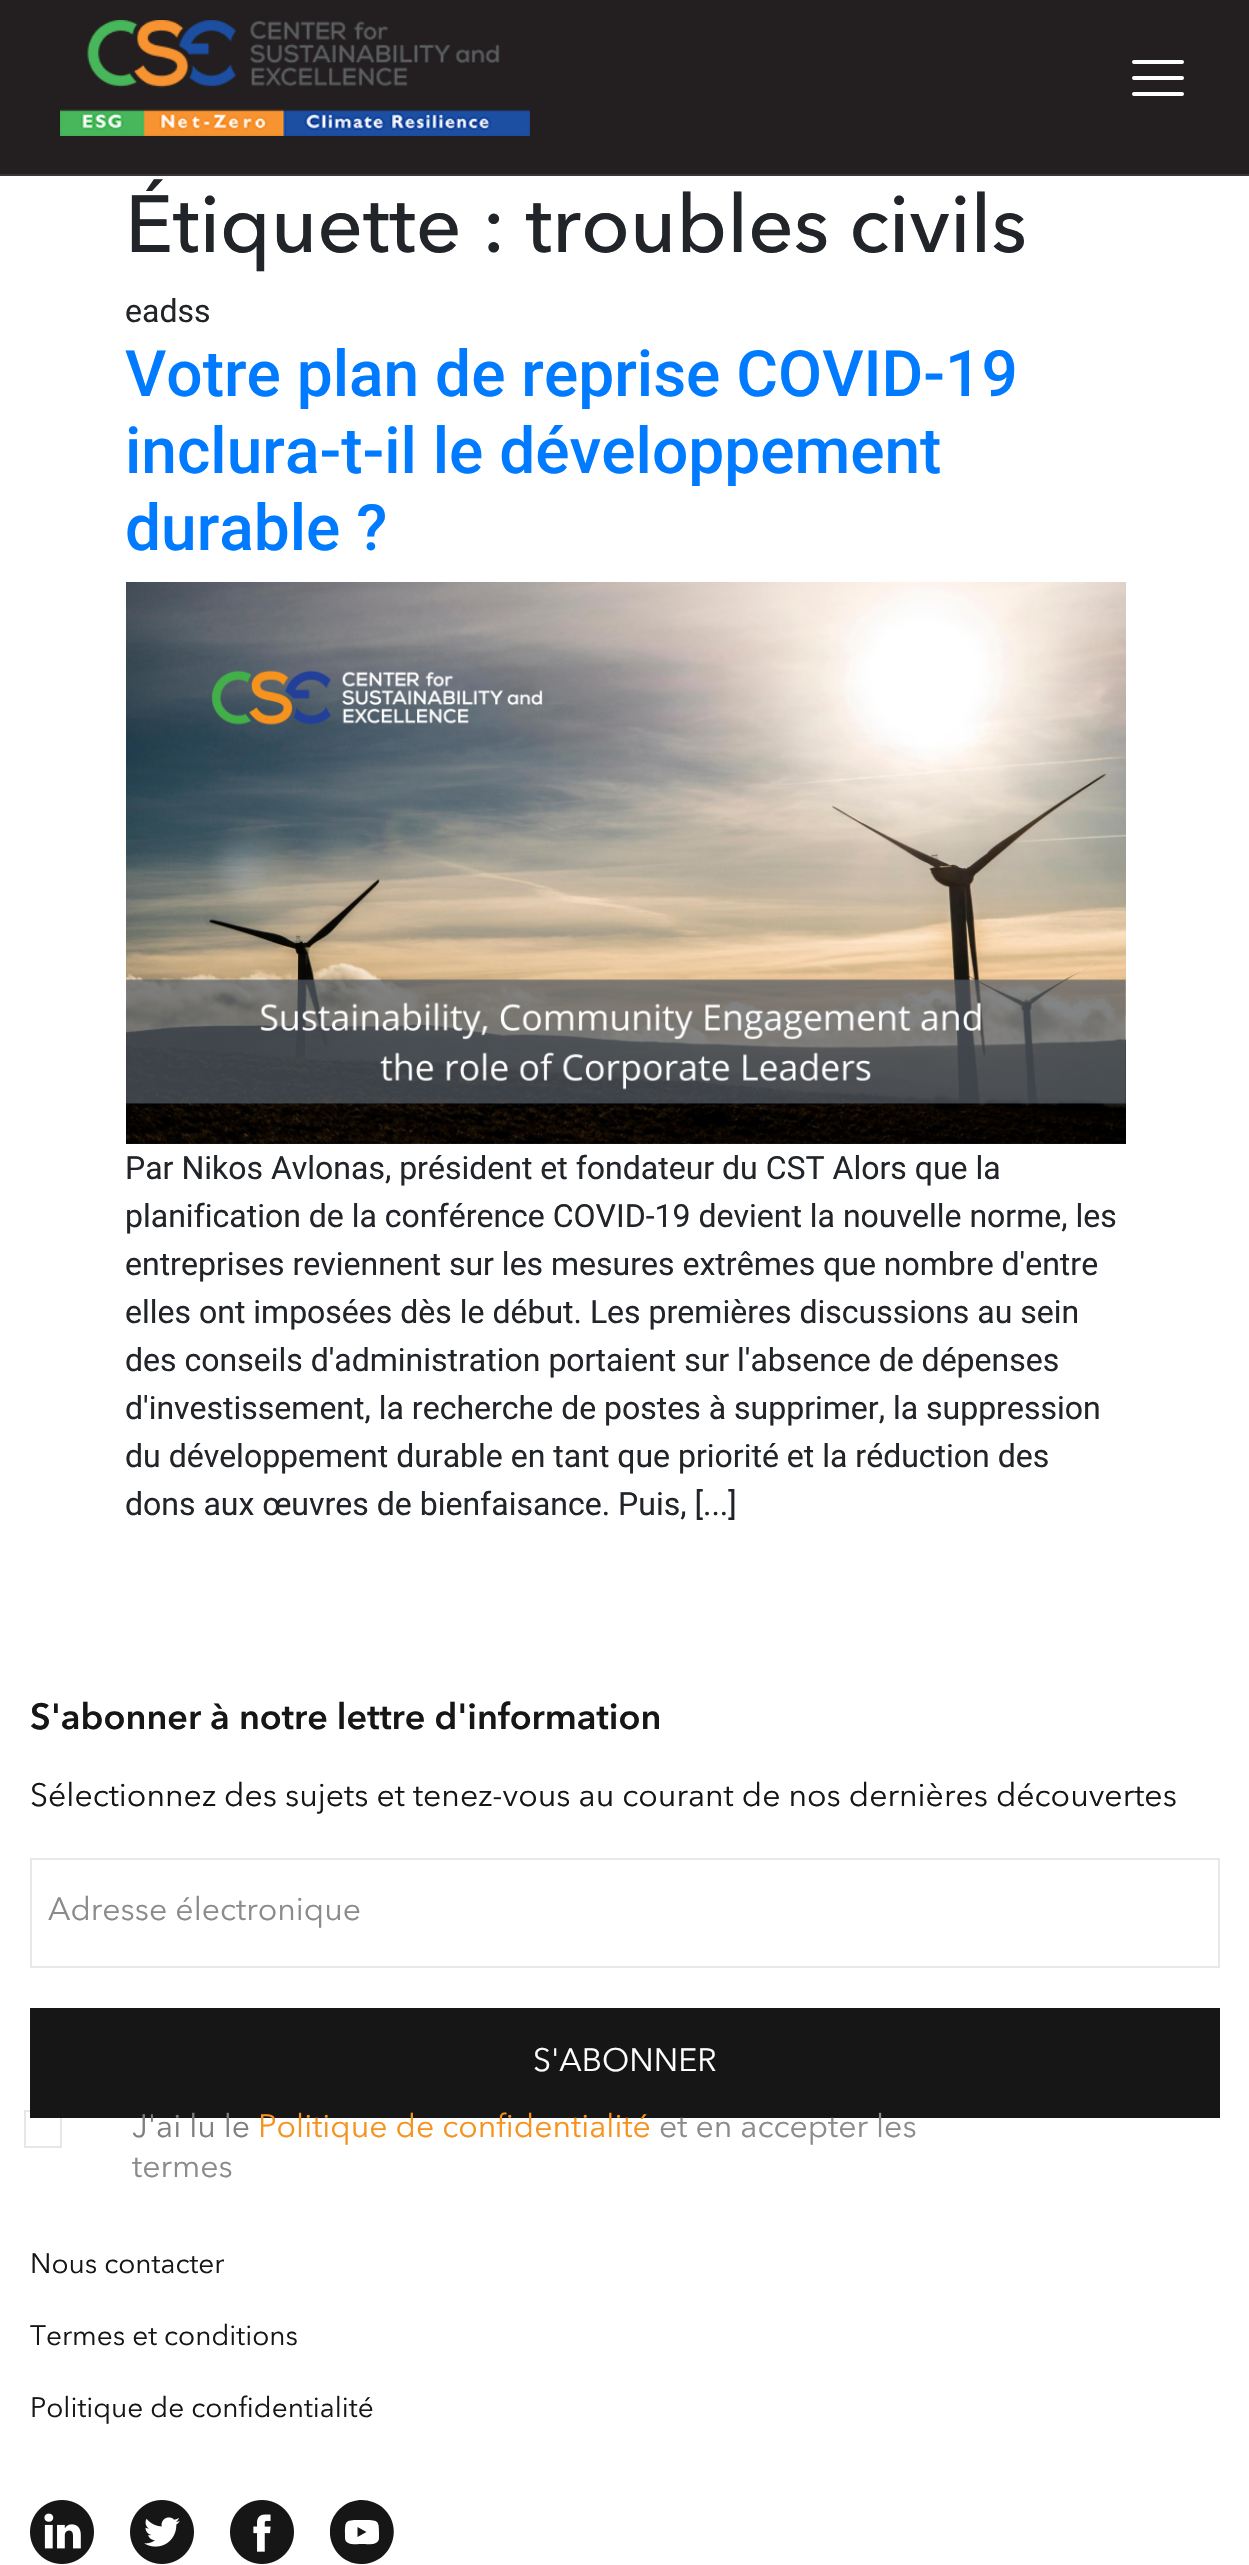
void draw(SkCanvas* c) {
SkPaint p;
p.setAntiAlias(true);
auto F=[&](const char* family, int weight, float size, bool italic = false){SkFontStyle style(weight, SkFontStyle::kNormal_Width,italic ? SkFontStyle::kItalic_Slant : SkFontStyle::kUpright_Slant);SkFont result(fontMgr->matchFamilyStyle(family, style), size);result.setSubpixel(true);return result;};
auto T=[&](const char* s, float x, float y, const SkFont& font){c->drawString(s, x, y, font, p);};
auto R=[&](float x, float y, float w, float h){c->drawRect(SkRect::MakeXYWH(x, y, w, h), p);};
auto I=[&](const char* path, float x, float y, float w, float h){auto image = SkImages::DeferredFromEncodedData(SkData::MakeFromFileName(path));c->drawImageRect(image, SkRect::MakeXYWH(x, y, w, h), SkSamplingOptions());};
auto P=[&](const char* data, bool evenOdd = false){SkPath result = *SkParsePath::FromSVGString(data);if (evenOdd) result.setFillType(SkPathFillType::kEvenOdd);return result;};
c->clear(0xffffffff);
p.setColor(0xff231f20);
R(0,0,1249,174);
p.setColor(0xff393536);
R(0,174,1249,2);
I("1.png",60,20,470,116);
p.setStroke(true);
p.setStrokeWidth(4);
p.setStrokeCap(SkPaint::kRound_Cap);
p.setStrokeJoin(SkPaint::kRound_Join);
p.setColor(0xffffffff);
c->drawPath(P("M1134 78h48m-48-16h48m-48 32h48"),p);
auto f1 = F("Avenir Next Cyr",500,80);
p.setStroke(false);
p.setColor(0xff212529);
T("Étiquette : troubles civils",125,252,f1);
auto f2 = F("Roboto",400,32);
T("eadss",125,322,f2);
auto f3 = F("Roboto",500,64);
p.setColor(0xff007bff);
T("Votre plan de reprise COVID-19",125,396,f3);
T("inclura-t-il le développement",125,473,f3);
T("durable ?",125,550,f3);
I("2.png",126,582,1000,562);
p.setColor(0xff212529);
T("Par Nikos Avlonas, président et fondateur du CST Alors que la",125,1179,f2);
T("planification de la conférence COVID-19 devient la nouvelle norme, les",125,1227,f2);
T("entreprises reviennent sur les mesures extrêmes que nombre d'entre",125,1275,f2);
T("elles ont imposées dès le début. Les premières discussions au sein",125,1323,f2);
T("des conseils d'administration portaient sur l'absence de dépenses",125,1371,f2);
T("d'investissement, la recherche de postes à supprimer, la suppression",125,1419,f2);
T("du développement durable en tant que priorité et la réduction des",125,1467,f2);
T("dons aux œuvres de bienfaisance. Puis, [...]",125,1515,f2);
auto f4 = F("Avenir Next",600,36);
p.setColor(0xff161616);
T("S'abonner à notre lettre d'information",30,1729,f4);
auto f5 = F("Avenir Next",400,32);
T("Sélectionnez des sujets et tenez-vous au courant de nos dernières découvertes",30,1806,f5);
p.setStroke(true);
p.setStrokeWidth(2);
p.setStrokeCap(SkPaint::kButt_Cap);
p.setStrokeJoin(SkPaint::kMiter_Join);
p.setColor(0xffe8e8e8);
c->drawRect(SkRect::MakeXYWH(31,1859,1188,108),p);
p.setStroke(false);
p.setColor(0xff8b8b8b);
T("Adresse électronique",48,1920,f5);
p.setColor(0xff161616);
R(30,2008,1190,110);
p.setColor(0xffffffff);
T("S'ABONNER",533,2071,f5);
p.setStroke(true);
p.setColor(0x1a161616);
c->drawRect(SkRect::MakeXYWH(25,2111,36,36),p);
p.setStroke(false);
p.setColor(0xff7f7f7f);
T("J'ai lu le",132,2137,f5);
p.setColor(0xfff6921e);
T("Politique de confidentialité",258,2137,f5);
p.setColor(0xff8b8b8b);
T("et en accepter les",659,2137,f5);
T("termes",132,2177,f5);
auto f6 = F("Avenir Next",400,28);
p.setColor(0xff161616);
T("Nous contacter",30,2273,f6);
T("Termes et conditions",30,2345,f6);
T("Politique de confidentialité",30,2417,f6);
I("3.png",30,2500,64,64);
I("4.png",130,2500,64,64);
I("5.png",230,2500,64,64);
c->drawPath(P("M357.5 2537l9-5l-9-5z"),p);
c->save();
c->clipRect(SkRect::MakeXYWH(330,2500,64,64));
c->drawPath(P("M362 2500c-7 0-14 2-20 7c-24 19-10 58 21 57c29-1 42-38 19-57c-5-4-13-7-20-7zm17 38c0 8-12 6-17 6c-5 0-17 2-17-6c0-18-1-18 17-18c18 0 17 0 17 18z"),p);
c->restore();
}
